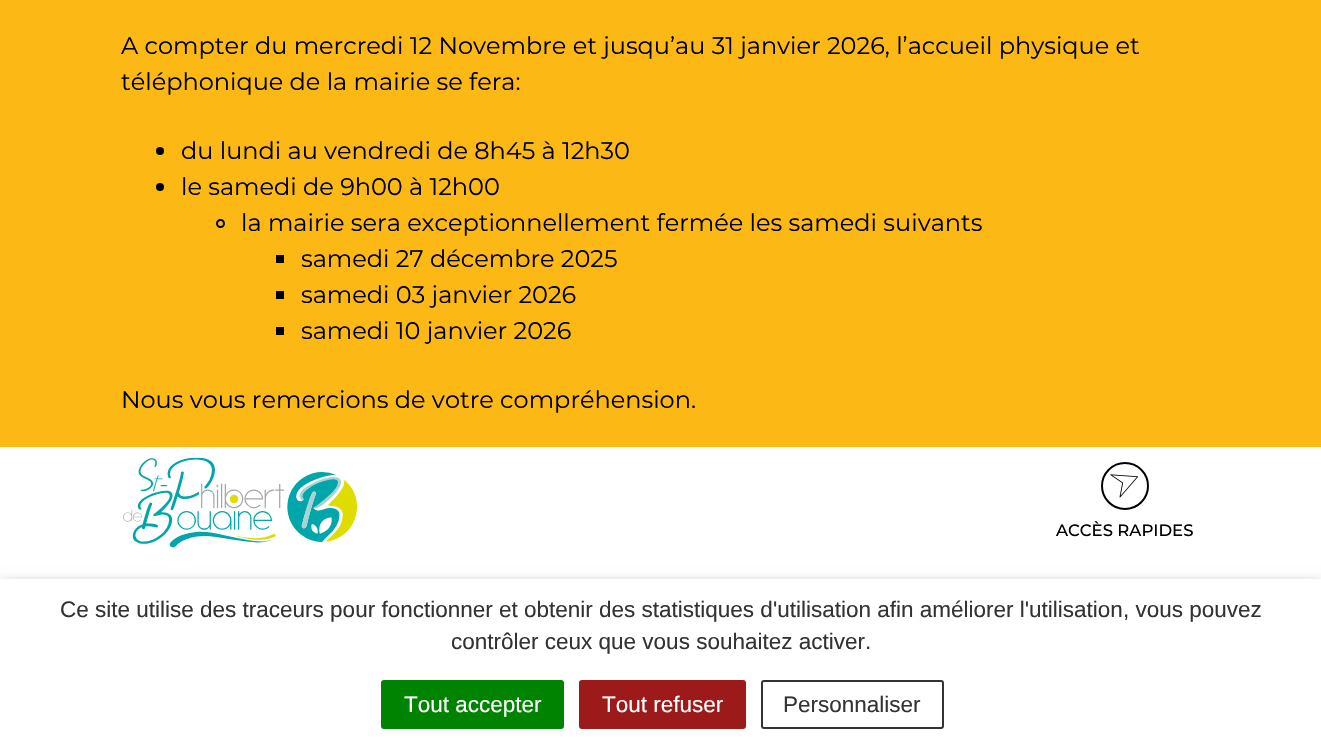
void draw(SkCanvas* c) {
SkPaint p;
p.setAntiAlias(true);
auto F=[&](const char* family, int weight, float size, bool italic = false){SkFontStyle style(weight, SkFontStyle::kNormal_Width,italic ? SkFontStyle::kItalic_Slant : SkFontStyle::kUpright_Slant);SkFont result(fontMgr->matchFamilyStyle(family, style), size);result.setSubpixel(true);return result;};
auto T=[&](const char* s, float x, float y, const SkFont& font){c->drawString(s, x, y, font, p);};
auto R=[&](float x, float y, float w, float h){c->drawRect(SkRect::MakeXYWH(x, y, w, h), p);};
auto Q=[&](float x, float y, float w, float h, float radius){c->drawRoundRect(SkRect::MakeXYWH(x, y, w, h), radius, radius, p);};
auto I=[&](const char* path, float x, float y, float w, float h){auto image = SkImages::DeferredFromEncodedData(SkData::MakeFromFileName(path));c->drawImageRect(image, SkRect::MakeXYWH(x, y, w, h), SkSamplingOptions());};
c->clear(0xffffffff);
p.setColor(0xfffcb814);
R(0,0,1321,447);
auto f1 = F("Montserrat",400,24);
p.setColor(0xff000000);
T("A compter du mercredi 12 Novembre et jusqu’au 31 janvier 2026, l’accueil physique et",121,54,f1);
T("téléphonique de la mairie se fera:",121,90,f1);
c->drawCircle(160,151,4,p);
T("du lundi au vendredi de 8h45 à 12h30",181,159,f1);
c->drawCircle(160,187,4,p);
T("le samedi de 9h00 à 12h00",181,195,f1);
p.setStroke(true);
p.setStrokeWidth(2);
c->drawCircle(220.5,223.5,3.5,p);
p.setStroke(false);
T("la mairie sera exceptionnellement fermée les samedi suivants",241,231,f1);
R(276,255,8,8);
T("samedi 27 décembre 2025",301,267,f1);
R(276,291,8,8);
T("samedi 03 janvier 2026",301,303,f1);
R(276,327,8,8);
T("samedi 10 janvier 2026",301,339,f1);
T("Nous vous remercions de votre compréhension.",121,408,f1);
I("1.png",123,458,234,90);
p.setStroke(true);
c->drawCircle(1125,486,23,p);
I("2.png",1110,474,28,24);
auto f2 = F("Montserrat",500,16.5);
p.setStroke(false);
T("ACCÈS RAPIDES",1056,536,f2);
p.setColor(0x80000000);
p.setMaskFilter(SkMaskFilter::MakeBlur(kNormal_SkBlurStyle, 7.5));
c->drawRect(SkRect::MakeXYWH(0,587,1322,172),p);
p.setMaskFilter(nullptr);
p.setColor(0xffffffff);
R(0,579,1321,172);
auto f3 = F("Liberation Sans",400,22.5);
p.setColor(0xff333333);
T("Ce site utilise des traceurs pour fonctionner et obtenir des statistiques d'utilisation afin améliorer l'utilisation, vous pouvez",60,617,f3);
T("contrôler ceux que vous souhaitez activer.",451,649,f3);
p.setColor(0xff008300);
Q(381,680,183,49,3);
p.setColor(0xffffffff);
T("Tout accepter",404,712,f3);
p.setColor(0xff9c1a1a);
Q(579,680,167,49,3);
p.setColor(0xffffffff);
T("Tout refuser",602,712,f3);
p.setStroke(true);
p.setColor(0xff333333);
c->drawRoundRect(SkRect::MakeXYWH(762,681,181,47),2,2,p);
p.setStroke(false);
T("Personnaliser",783,712,f3);
}
